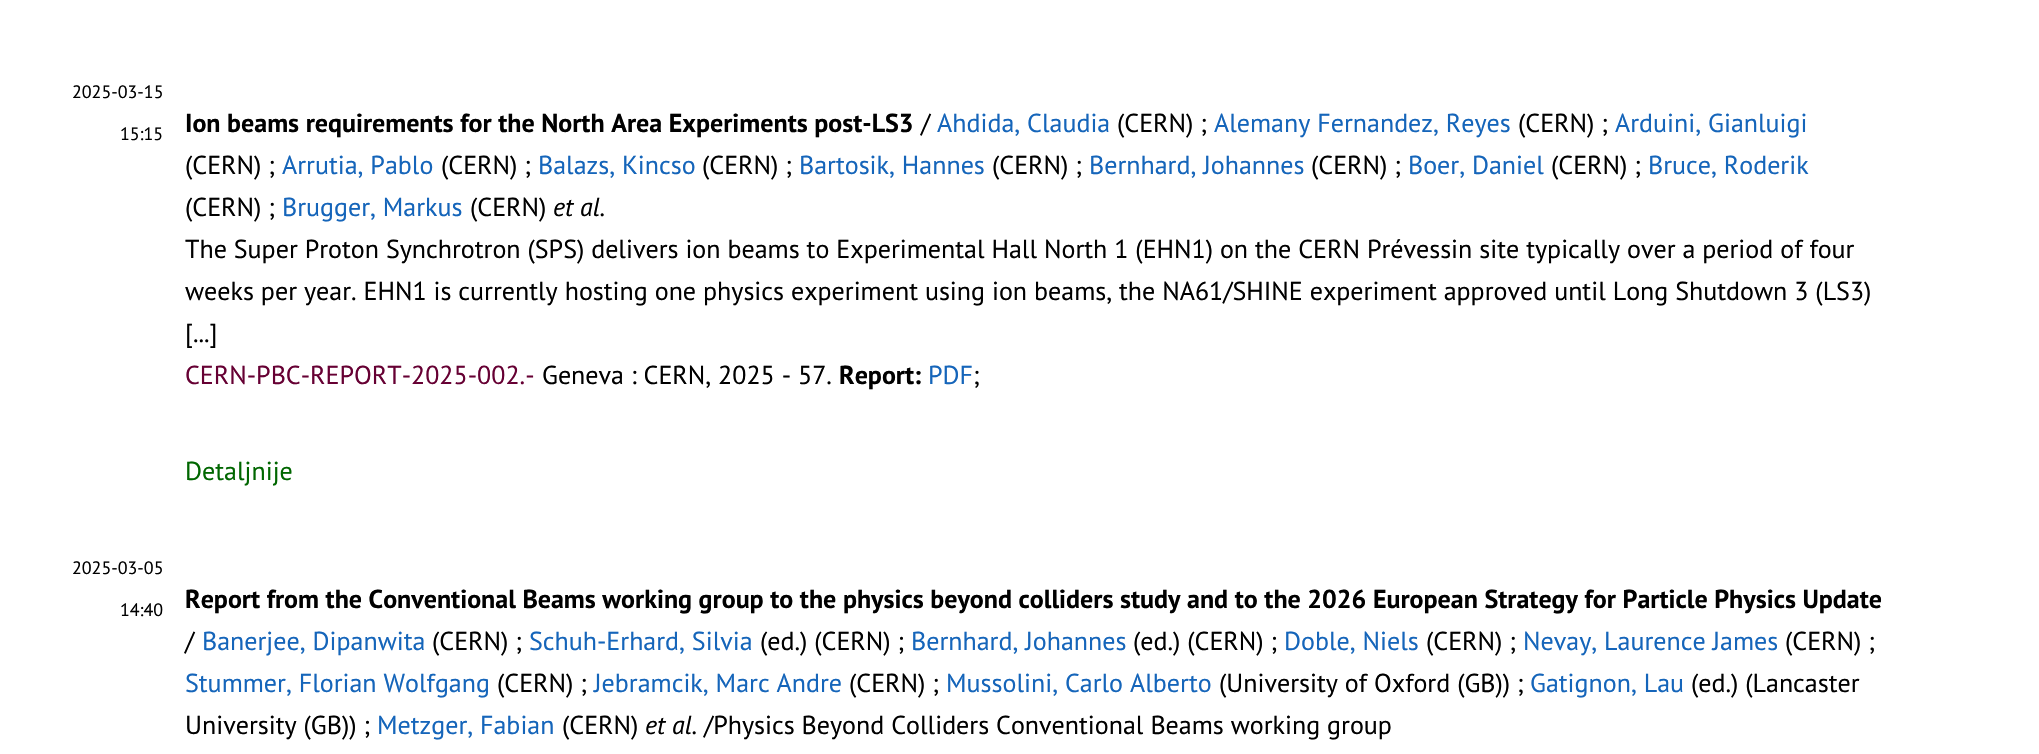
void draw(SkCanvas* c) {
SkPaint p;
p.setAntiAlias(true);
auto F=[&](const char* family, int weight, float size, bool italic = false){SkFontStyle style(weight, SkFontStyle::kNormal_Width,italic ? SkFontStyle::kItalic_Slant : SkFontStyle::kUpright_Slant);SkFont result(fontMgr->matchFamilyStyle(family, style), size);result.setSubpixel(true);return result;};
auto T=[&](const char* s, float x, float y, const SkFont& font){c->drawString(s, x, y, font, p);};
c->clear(0xffffffff);
auto f1 = F("PT Sans",400,18);
p.setColor(0xff000000);
T("2025-03-15",72,98,f1);
T("15:15",120,140,f1);
auto f2 = F("PT Sans",700,26);
T("Ion beams requirements for the North Area Experiments post-LS3",185,132,f2);
auto f3 = F("PT Sans",400,26);
T("/",921,132,f3);
p.setColor(0xff1565ba);
T("Ahdida, Claudia",937,132,f3);
p.setColor(0xff000000);
T("(CERN) ;",1117,132,f3);
p.setColor(0xff1565ba);
T("Alemany Fernandez, Reyes",1214,132,f3);
p.setColor(0xff000000);
T("(CERN) ;",1518,132,f3);
p.setColor(0xff1565ba);
T("Arduini, Gianluigi",1615,132,f3);
p.setColor(0xff000000);
T("(CERN) ;",185,174,f3);
p.setColor(0xff1565ba);
T("Arrutia, Pablo",282,174,f3);
p.setColor(0xff000000);
T("(CERN) ;",441,174,f3);
p.setColor(0xff1565ba);
T("Balazs, Kincso",538,174,f3);
p.setColor(0xff000000);
T("(CERN) ;",702,174,f3);
p.setColor(0xff1565ba);
T("Bartosik, Hannes",799,174,f3);
p.setColor(0xff000000);
T("(CERN) ;",992,174,f3);
p.setColor(0xff1565ba);
T("Bernhard, Johannes",1089,174,f3);
p.setColor(0xff000000);
T("(CERN) ;",1311,174,f3);
p.setColor(0xff1565ba);
T("Boer, Daniel",1408,174,f3);
p.setColor(0xff000000);
T("(CERN) ;",1551,174,f3);
p.setColor(0xff1565ba);
T("Bruce, Roderik",1648,174,f3);
p.setColor(0xff000000);
T("(CERN) ;",185,216,f3);
p.setColor(0xff1565ba);
T("Brugger, Markus",282,216,f3);
p.setColor(0xff000000);
T("(CERN)",470,216,f3);
auto f4 = F("PT Sans",400,26,true);
T("et al.",553,216,f4);
T("The Super Proton Synchrotron (SPS) delivers ion beams to Experimental Hall North 1 (EHN1) on the CERN Prévessin site typically over a period of four",185,258,f3);
T("weeks per year. EHN1 is currently hosting one physics experiment using ion beams, the NA61/SHINE experiment approved until Long Shutdown 3 (LS3)",185,300,f3);
T("[...]",185,342,f3);
p.setColor(0xff660033);
T("CERN-PBC-REPORT-2025-002.-",185,384,f3);
p.setColor(0xff000000);
T("Geneva : CERN, 2025 - 57.",542,384,f3);
T("Report:",839,384,f2);
p.setColor(0xff1565ba);
T("PDF",928,384,f3);
p.setColor(0xff000000);
T(";",973,384,f3);
p.setColor(0xff006600);
T("Detaljnije",185,480,f3);
p.setColor(0xff000000);
T("2025-03-05",72,574,f1);
T("14:40",120,616,f1);
T("Report from the Conventional Beams working group to the physics beyond colliders study and to the 2026 European Strategy for Particle Physics Update",185,608,f2);
T("/",185,650,f3);
p.setColor(0xff1565ba);
T("Banerjee, Dipanwita",202,650,f3);
p.setColor(0xff000000);
T("(CERN) ;",432,650,f3);
p.setColor(0xff1565ba);
T("Schuh-Erhard, Silvia",529,650,f3);
p.setColor(0xff000000);
T("(ed.) (CERN) ;",760,650,f3);
p.setColor(0xff1565ba);
T("Bernhard, Johannes",911,650,f3);
p.setColor(0xff000000);
T("(ed.) (CERN) ;",1133,650,f3);
p.setColor(0xff1565ba);
T("Doble, Niels",1284,650,f3);
p.setColor(0xff000000);
T("(CERN) ;",1426,650,f3);
p.setColor(0xff1565ba);
T("Nevay, Laurence James",1523,650,f3);
p.setColor(0xff000000);
T("(CERN) ;",1785,650,f3);
p.setColor(0xff1565ba);
T("Stummer, Florian Wolfgang",185,692,f3);
p.setColor(0xff000000);
T("(CERN) ;",497,692,f3);
p.setColor(0xff1565ba);
T("Jebramcik, Marc Andre",594,692,f3);
p.setColor(0xff000000);
T("(CERN) ;",849,692,f3);
p.setColor(0xff1565ba);
T("Mussolini, Carlo Alberto",946,692,f3);
p.setColor(0xff000000);
T("(University of Oxford (GB)) ;",1219,692,f3);
p.setColor(0xff1565ba);
T("Gatignon, Lau",1530,692,f3);
p.setColor(0xff000000);
T("(ed.) (Lancaster",1691,692,f3);
T("University (GB)) ;",185,734,f3);
p.setColor(0xff1565ba);
T("Metzger, Fabian",377,734,f3);
p.setColor(0xff000000);
T("(CERN)",562,734,f3);
T("et al.",645,734,f4);
T("/Physics Beyond Colliders Conventional Beams working group",704,734,f3);
}
